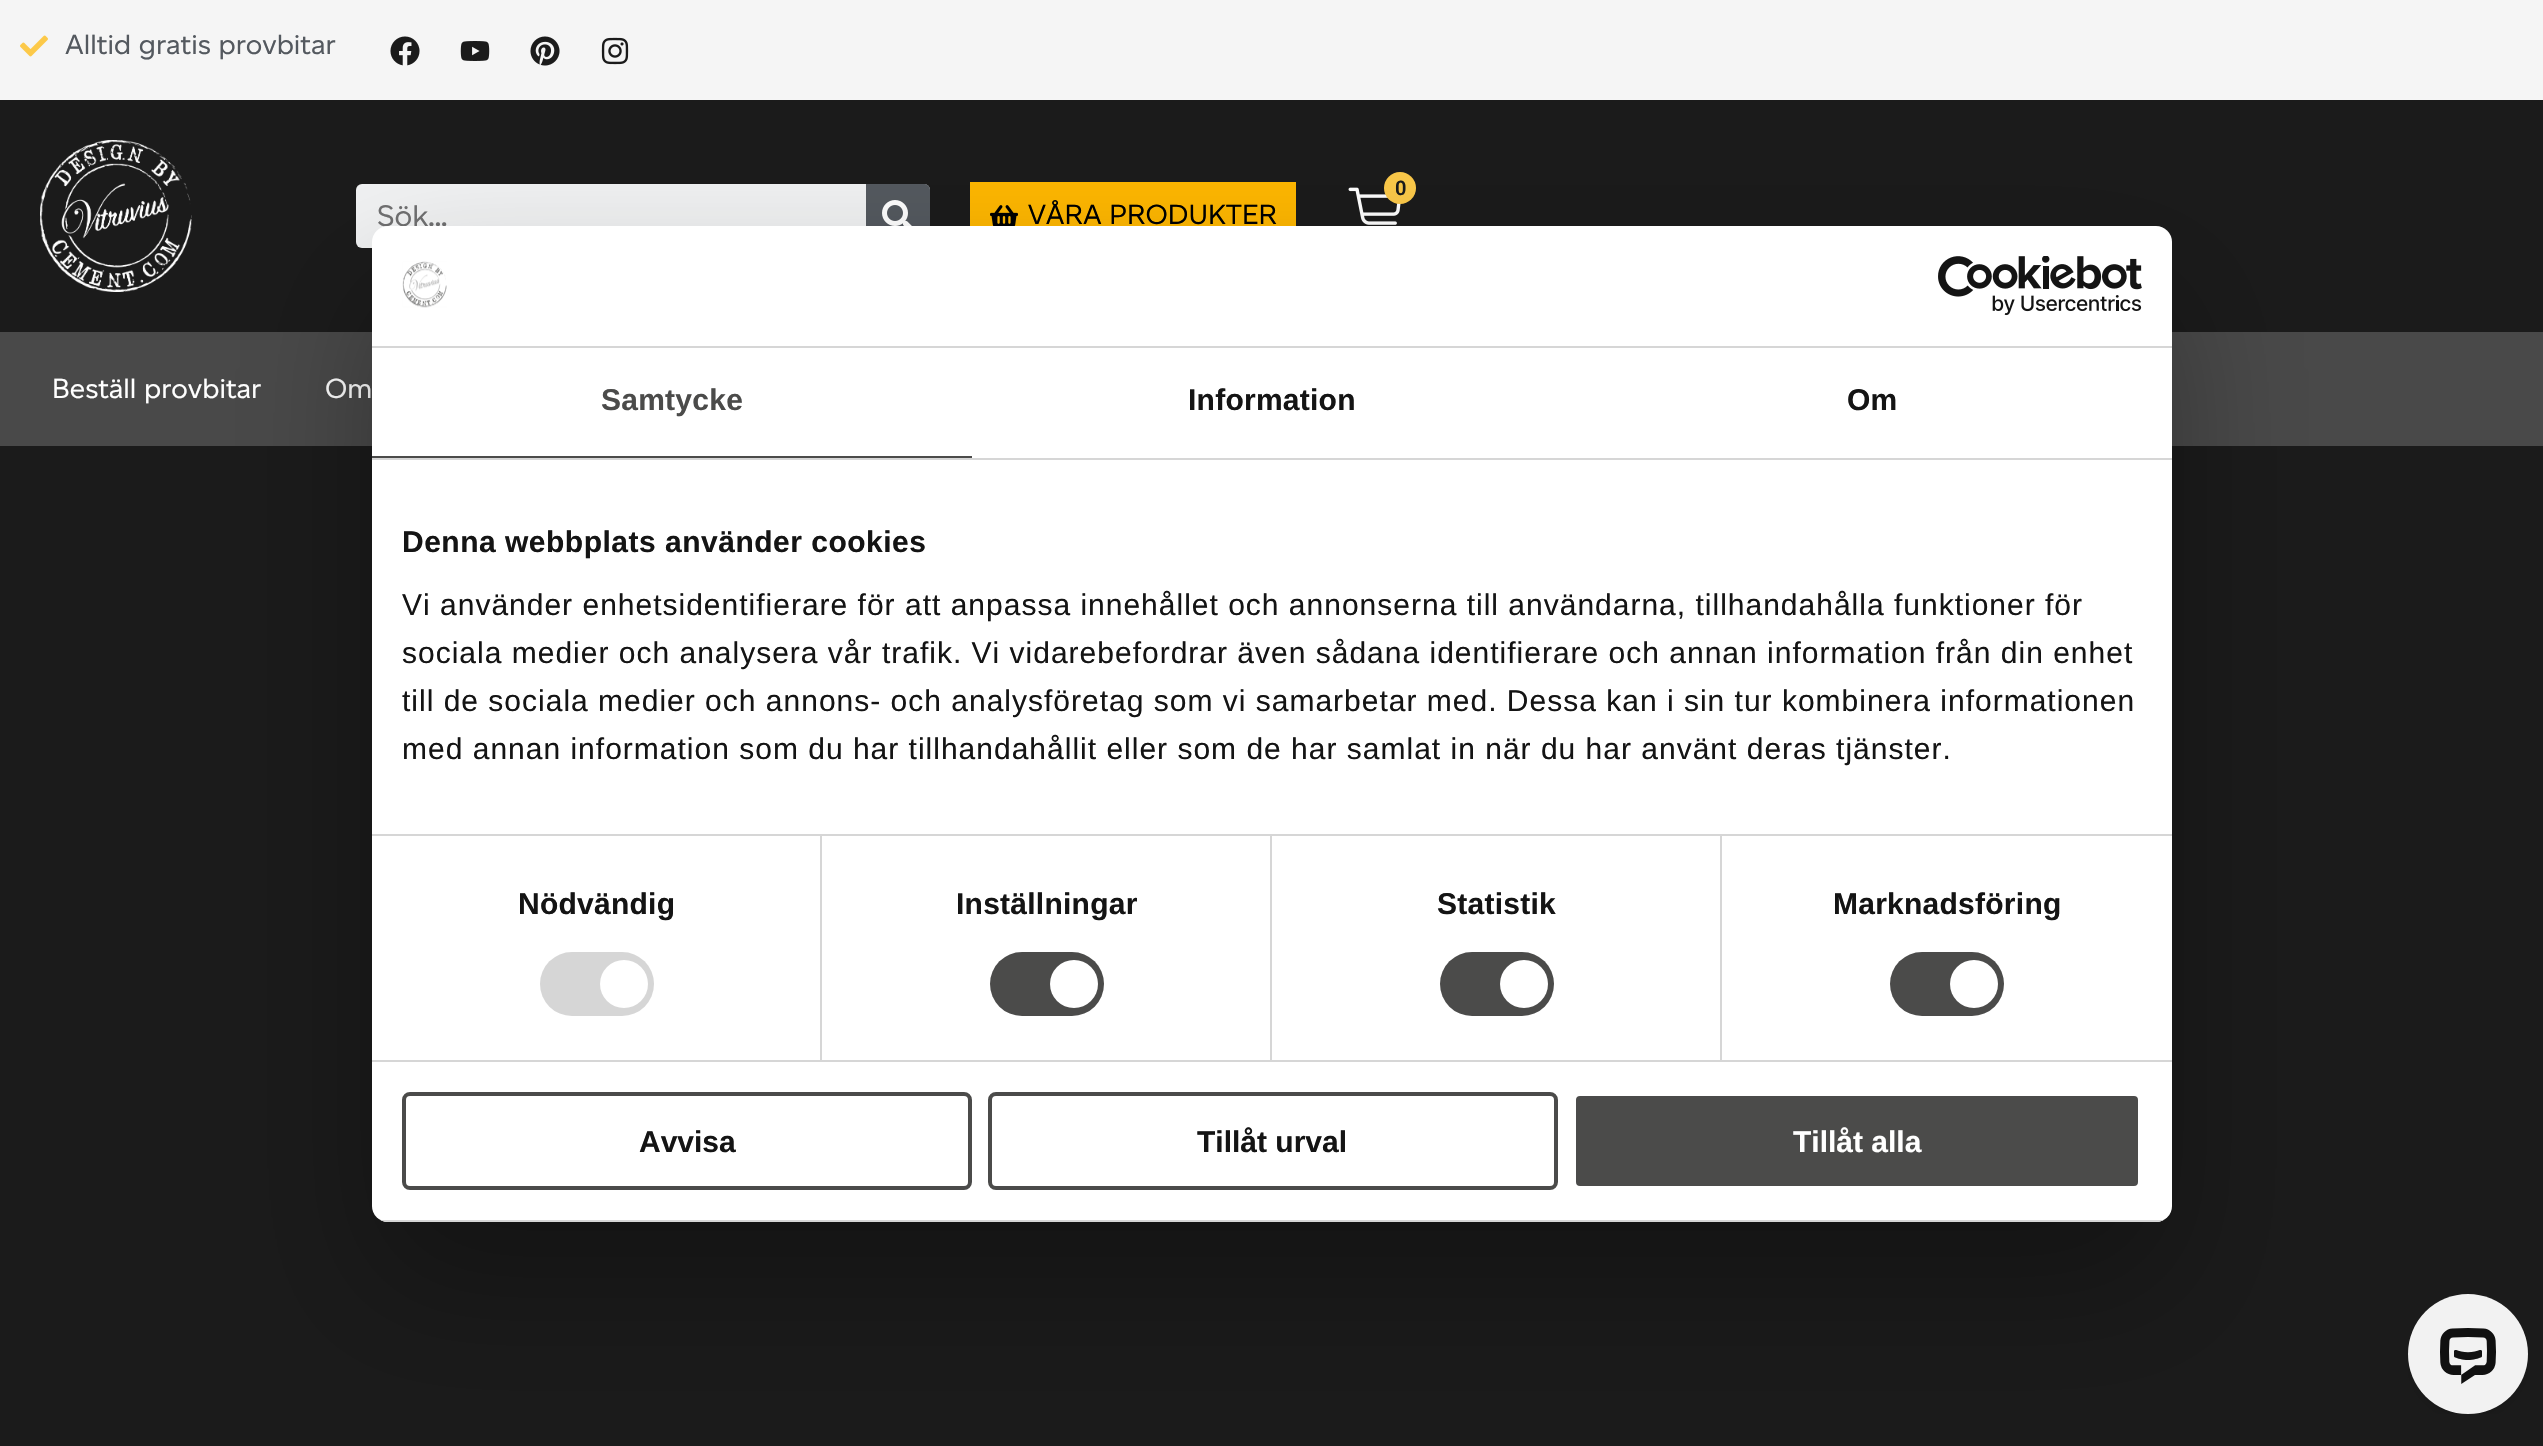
void draw(SkCanvas* c) {
SkPaint p;
p.setAntiAlias(true);
auto F=[&](const char* family, int weight, float size, bool italic = false){SkFontStyle style(weight, SkFontStyle::kNormal_Width,italic ? SkFontStyle::kItalic_Slant : SkFontStyle::kUpright_Slant);SkFont result(fontMgr->matchFamilyStyle(family, style), size);result.setSubpixel(true);return result;};
auto T=[&](const char* s, float x, float y, const SkFont& font){c->drawString(s, x, y, font, p);};
auto L=[&](const char* s, float x, float y, const SkFont& font, const SkPaint& ink, float letter, float word){std::vector<SkGlyphID> glyphs(font.countText(s, strlen(s), SkTextEncoding::kUTF8));std::vector<float> xs(glyphs.size());font.textToGlyphs(s, strlen(s), SkTextEncoding::kUTF8, glyphs);font.getXPos(glyphs, xs, x);float extra = 0;for (size_t i = 0; i < glyphs.size(); i++) {xs[i] += extra;extra += letter + word * (glyphs[i] == font.unicharToGlyph(' '));}c->drawTextBlob(SkTextBlob::MakeFromPosHGlyphs(glyphs, xs, y, font), 0, 0, ink);};
auto R=[&](float x, float y, float w, float h){c->drawRect(SkRect::MakeXYWH(x, y, w, h), p);};
auto Q=[&](float x, float y, float w, float h, float radius){c->drawRoundRect(SkRect::MakeXYWH(x, y, w, h), radius, radius, p);};
auto I=[&](const char* path, float x, float y, float w, float h){auto image = SkImages::DeferredFromEncodedData(SkData::MakeFromFileName(path));c->drawImageRect(image, SkRect::MakeXYWH(x, y, w, h), SkSamplingOptions());};
auto P=[&](const char* data, bool evenOdd = false){SkPath result = *SkParsePath::FromSVGString(data);if (evenOdd) result.setFillType(SkPathFillType::kEvenOdd);return result;};
c->clear(0xff1b1b1b);
p.setColor(0xfff5f5f5);
R(0,0,2543,100);
I("1.png",20,35,28,22);
auto f1 = F("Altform",400,28);
p.setColor(0xff54595f);
T("Alltid gratis provbitar",65,54,f1);
I("2.png",390,36,30,30);
I("3.png",460,41,30,20);
I("4.png",530,36,30,30);
I("5.png",601,37,28,28);
I("6.png",40,140,152,152);
I("7.png",1348,187,53,38);
p.setColor(0xfffcc949);
c->drawCircle(1400,188,16,p);
auto f2 = F("Roboto",600,20);
p.setColor(0xff1b1b1b);
T("0",1395,195,f2);
p.setColor(0xfff1f2f3);
Q(356,184,574,64,6);
auto f3 = F("Altform",400,30);
p.setColor(0xff707071);
T("Sök...",377,226,f3);
p.setColor(0xff54595f);
c->drawPath(P("M866 184h58c3.5 0 6 2.5 6 6v52c0 3.5-2.5 6-6 6h-58z"),p);
I("8.png",882,200,30,26);
p.setColor(0xffffb700);
R(970,182,326,44);
I("9.png",990,205,28,21);
p.setColor(0xff000000);
T("VÅRA PRODUKTER",1028,224,f1);
p.setColor(0xff494949);
R(0,332,2543,114);
p.setColor(0xffffffff);
T("Beställ provbitar",52,398,f1);
T("Om",325,398,f1);
p.setColor(0x4d000000);
p.setMaskFilter(SkMaskFilter::MakeBlur(kNormal_SkBlurStyle, 68));
c->drawRoundRect(SkRect::MakeXYWH(372,290,1800,996),16,16,p);
p.setMaskFilter(nullptr);
p.setColor(0xffffffff);
Q(372,226,1800,996,16);
p.setColor(0xffd6d6d6);
R(372,346,1800,2);
I("10.png",402,261,45,47);
I("11.png",1938,256,204,60);
R(372,458,1800,2);
p.setColor(0xff4b4b4a);
R(372,456,600,2);
auto f4 = F("Liberation Sans",700,30);
L("Samtycke",601,410,f4,p,.25,0);
p.setColor(0xff141414);
L("Information",1188,410,f4,p,.25,0);
L("Om",1847,410,f4,p,.25,0);
p.setColor(0xffd6d6d6);
R(372,834,1800,2);
p.setColor(0xff141414);
L("Denna webbplats använder cookies",402,552,f4,p,.5,0);
auto f5 = F("Liberation Sans",400,30);
L("Vi använder enhetsidentifierare för att anpassa innehållet och annonserna till användarna, tillhandahålla funktioner för",402,615,f5,p,1,0);
L("sociala medier och analysera vår trafik. Vi vidarebefordrar även sådana identifierare och annan information från din enhet",402,663,f5,p,1,0);
L("till de sociala medier och annons- och analysföretag som vi samarbetar med. Dessa kan i sin tur kombinera informationen",402,711,f5,p,1,0);
L("med annan information som du har tillhandahållit eller som de har samlat in när du har använt deras tjänster.",402,759,f5,p,1,0);
p.setColor(0xffd6d6d6);
R(372,1060,1800,2);
R(820,836,2,224);
p.setColor(0xff141414);
L("Nödvändig",518,914,f4,p,.25,0);
p.setColor(0xffd6d6d6);
Q(540,952,114,64,32);
p.setColor(0xffffffff);
c->drawCircle(624,984,24,p);
p.setColor(0xffd6d6d6);
R(1270,836,2,224);
p.setColor(0xff141414);
L("Inställningar",956,914,f4,p,.25,0);
p.setColor(0xff4b4b4a);
Q(990,952,114,64,32);
p.setColor(0xffffffff);
c->drawCircle(1074,984,24,p);
p.setColor(0xffd6d6d6);
R(1720,836,2,224);
p.setColor(0xff141414);
L("Statistik",1437,914,f4,p,.25,0);
p.setColor(0xff4b4b4a);
Q(1440,952,114,64,32);
p.setColor(0xffffffff);
c->drawCircle(1524,984,24,p);
p.setColor(0xff141414);
L("Marknadsföring",1833,914,f4,p,.25,0);
p.setColor(0xff4b4b4a);
Q(1890,952,114,64,32);
p.setColor(0xffffffff);
c->drawCircle(1974,984,24,p);
c->save();
c->clipPath(P("M388 226h1768c9 0 16 7 16 16v964c0 9-7 16-16 16h-1768c-9 0-16-7-16-16v-964c0-9 7-16 16-16z"),true);
p.setColor(0xffd6d6d6);
R(372,1220,1800,2);
c->restore();
p.setStroke(true);
p.setStrokeWidth(4);
p.setColor(0xff4b4b4a);
c->drawRoundRect(SkRect::MakeXYWH(404,1094,566,94),6,6,p);
p.setStroke(false);
p.setColor(0xff141414);
T("Avvisa",639,1152,f4);
p.setStroke(true);
p.setColor(0xff4b4b4a);
c->drawRoundRect(SkRect::MakeXYWH(990,1094,566,94),6,6,p);
p.setStroke(false);
p.setColor(0xff141414);
T("Tillåt urval",1197,1152,f4);
p.setColor(0xff4b4b4a);
c->drawRoundRect(SkRect::MakeXYWH(1574,1094,566,94),6,6,p);
p.setStroke(true);
p.setColor(0xffffffff);
c->drawRoundRect(SkRect::MakeXYWH(1574,1094,566,94),6,6,p);
p.setStroke(false);
T("Tillåt alla",1793,1152,f4);
I("12.png",2408,1294,120,120);
}
